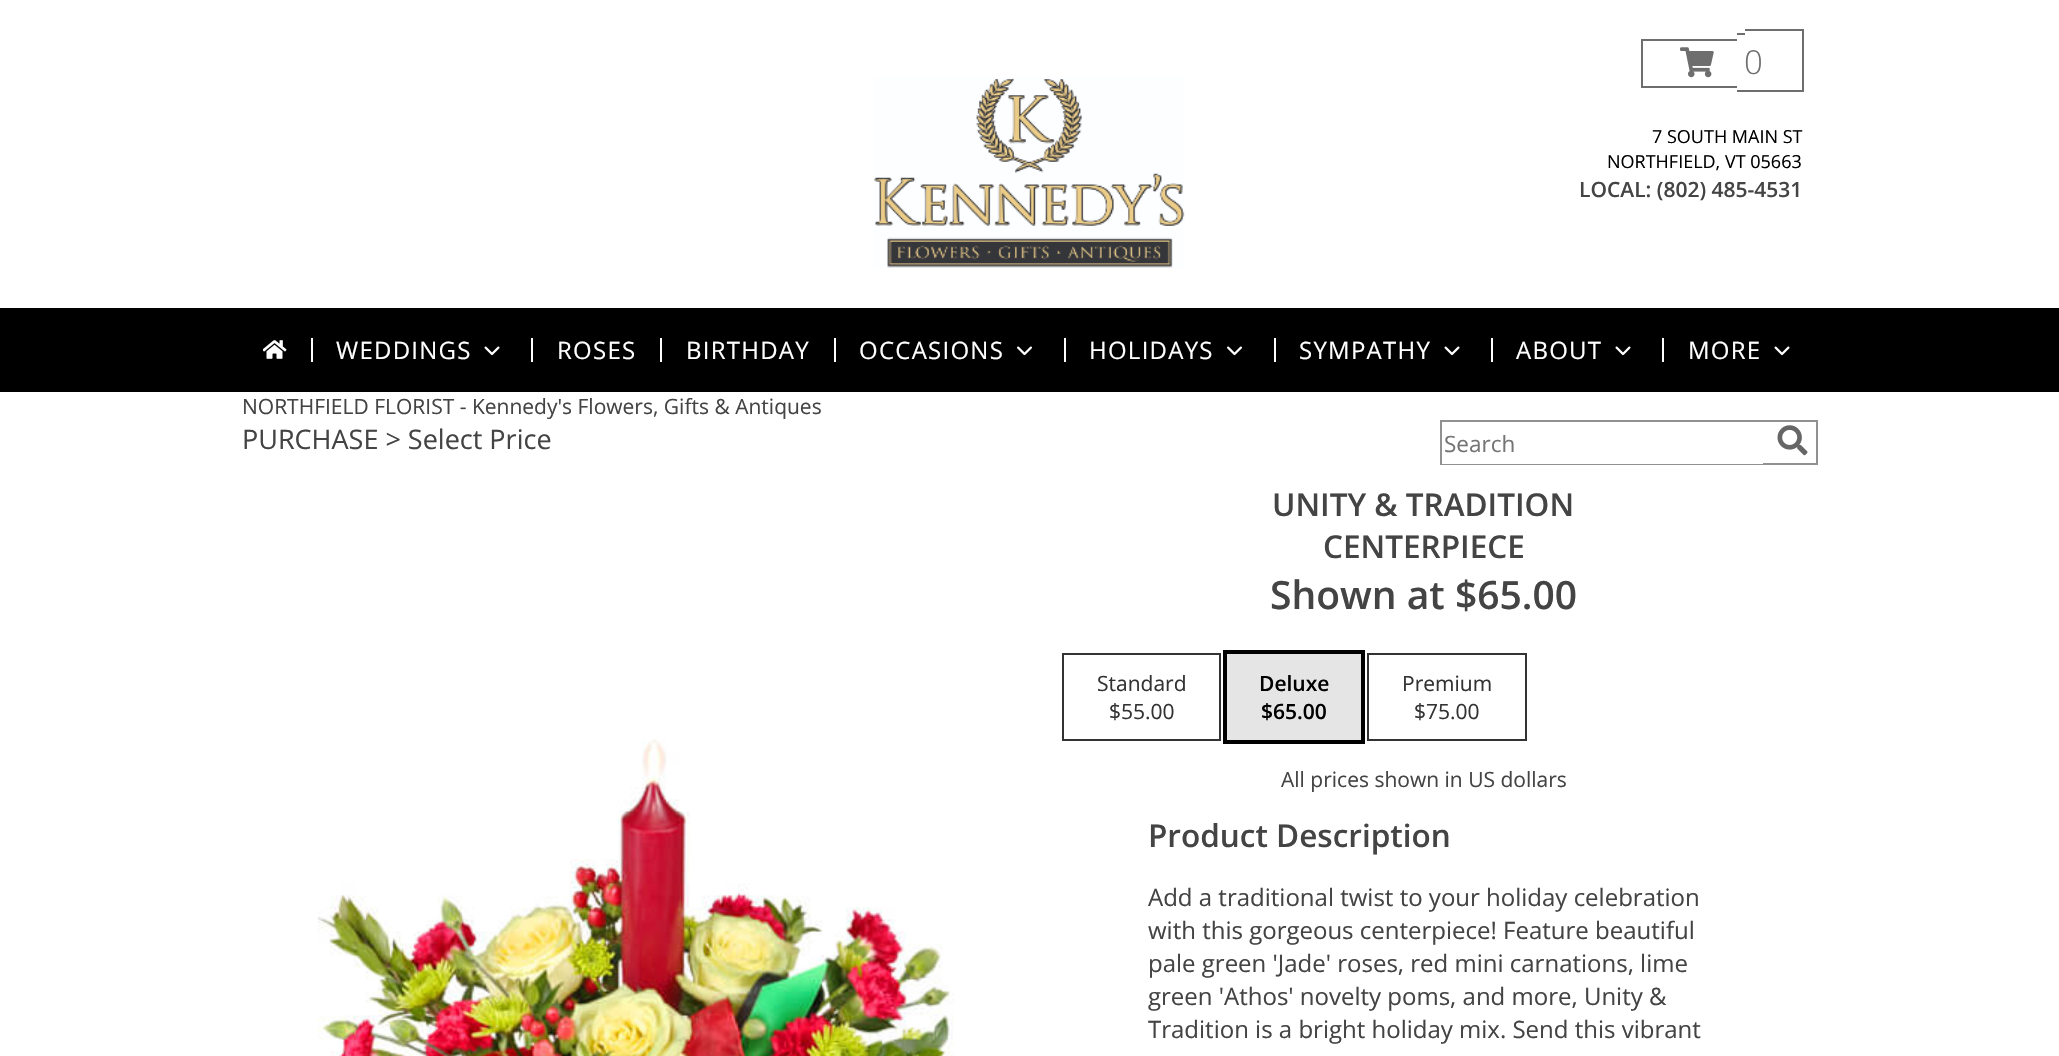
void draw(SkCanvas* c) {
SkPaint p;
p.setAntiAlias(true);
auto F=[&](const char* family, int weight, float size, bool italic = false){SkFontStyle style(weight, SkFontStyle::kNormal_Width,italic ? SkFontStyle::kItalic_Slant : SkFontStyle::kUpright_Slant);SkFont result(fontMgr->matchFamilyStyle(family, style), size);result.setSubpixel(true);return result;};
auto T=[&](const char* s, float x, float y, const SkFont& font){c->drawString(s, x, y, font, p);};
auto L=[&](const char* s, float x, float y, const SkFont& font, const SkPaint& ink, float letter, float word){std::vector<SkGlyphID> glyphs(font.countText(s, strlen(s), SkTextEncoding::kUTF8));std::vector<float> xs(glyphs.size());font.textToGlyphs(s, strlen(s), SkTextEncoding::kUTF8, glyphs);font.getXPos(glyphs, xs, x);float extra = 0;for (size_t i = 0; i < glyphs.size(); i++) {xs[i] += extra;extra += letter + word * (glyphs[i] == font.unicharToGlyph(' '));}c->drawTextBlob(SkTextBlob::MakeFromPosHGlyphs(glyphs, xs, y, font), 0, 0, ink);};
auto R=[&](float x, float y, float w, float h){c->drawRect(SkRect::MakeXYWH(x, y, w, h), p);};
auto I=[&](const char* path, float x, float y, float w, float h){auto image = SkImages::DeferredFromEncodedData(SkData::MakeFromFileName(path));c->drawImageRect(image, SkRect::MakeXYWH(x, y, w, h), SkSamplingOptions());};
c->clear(0xffffffff);
I("1.png",874,77,311,191);
p.setColor(0xff6e6e6e);
R(1641,39,96,2);
R(1641,86,96,2);
R(1641,39,2,48);
R(1737,33,8,2);
R(1737,90,8,2);
R(1745,29,58,2);
R(1802,29,2,63);
R(1745,90,58,2);
I("2.png",1680,47,34,31);
auto f1 = F("Open Sans",300,33);
T("0",1744,74,f1);
auto f2 = F("Open Sans",400,18);
p.setColor(0xff000000);
T("7 SOUTH MAIN ST",1652,143,f2);
T("NORTHFIELD, VT 05663",1607,168,f2);
auto f3 = F("Open Sans",600,21);
p.setColor(0xff444444);
T("LOCAL: (802) 485-4531",1579,197,f3);
p.setColor(0xff000000);
R(0,308,2059,84);
I("3.png",263,340,24,19);
p.setColor(0xffffffff);
R(311,338,2,24);
auto f4 = F("Open Sans",400,24);
L("WEDDINGS",336,359,f4,p,1.25,0);
I("4.png",484,346,16,10);
R(531,338,2,24);
L("ROSES",557,359,f4,p,1.25,0);
R(660,338,2,24);
L("BIRTHDAY",686,359,f4,p,1.25,0);
R(834,338,2,24);
L("OCCASIONS",859,359,f4,p,1.25,0);
I("5.png",1017,346,15,10);
R(1064,338,2,24);
L("HOLIDAYS",1089,359,f4,p,1.25,0);
I("5.png",1227,346,15,10);
R(1274,338,2,24);
L("SYMPATHY",1299,359,f4,p,1.25,0);
I("4.png",1444,346,16,10);
R(1491,338,2,24);
L("ABOUT",1516,359,f4,p,1.25,0);
I("4.png",1615,346,16,10);
R(1662,338,2,24);
L("MORE",1688,359,f4,p,1.25,0);
I("4.png",1774,346,16,10);
auto f5 = F("Open Sans",400,21);
p.setColor(0xff444444);
T("NORTHFIELD FLORIST - Kennedy's Flowers, Gifts & Antiques",242,414,f5);
auto f6 = F("Open Sans",400,27);
T("PURCHASE > Select Price",242,449,f6);
p.setStroke(true);
p.setStrokeWidth(2);
p.setColor(0xff919191);
c->drawRect(SkRect::MakeXYWH(1441,421,376,43),p);
p.setStroke(false);
p.setColor(0xffffffff);
R(1442,463,321,1);
auto f7 = F("Open Sans",400,22.5);
p.setColor(0xff757575);
T("Search",1444,452,f7);
I("6.png",1777,425,31,31);
I("7.png",318,739,636,317);
auto f8 = F("Open Sans",600,31.5);
p.setColor(0xff444444);
T("UNITY & TRADITION",1272,516,f8);
T("CENTERPIECE",1323,558,f8);
auto f9 = F("Open Sans",600,39);
T("Shown at $65.00",1270,609,f9);
p.setStroke(true);
p.setColor(0xff333333);
c->drawRect(SkRect::MakeXYWH(1063,654,157,86),p);
p.setStroke(false);
T("Standard",1097,691,f5);
T("$55.00",1109,719,f5);
p.setStroke(true);
p.setStrokeWidth(5);
p.setColor(0xff000000);
c->drawRect(SkRect::MakeXYWH(1225.5,652.5,137,89),p);
p.setStroke(false);
p.setColor(0xffe5e5e5);
R(1227,654,134,86);
p.setColor(0xff000000);
T("Deluxe",1259,691,f3);
T("$65.00",1261,719,f3);
p.setStroke(true);
p.setStrokeWidth(2);
p.setColor(0xff333333);
c->drawRect(SkRect::MakeXYWH(1368,654,158,86),p);
p.setStroke(false);
T("Premium",1402,691,f5);
T("$75.00",1414,719,f5);
p.setColor(0xff444444);
T("All prices shown in US dollars",1281,787,f5);
T("Product Description",1148,847,f8);
T("Add a traditional twist to your holiday celebration",1148,906,f4);
T("with this gorgeous centerpiece! Feature beautiful",1148,939,f4);
T("pale green 'Jade' roses, red mini carnations, lime",1148,972,f4);
T("green 'Athos' novelty poms, and more, Unity &",1148,1005,f4);
T("Tradition is a bright holiday mix. Send this vibrant",1148,1038,f4);
}
